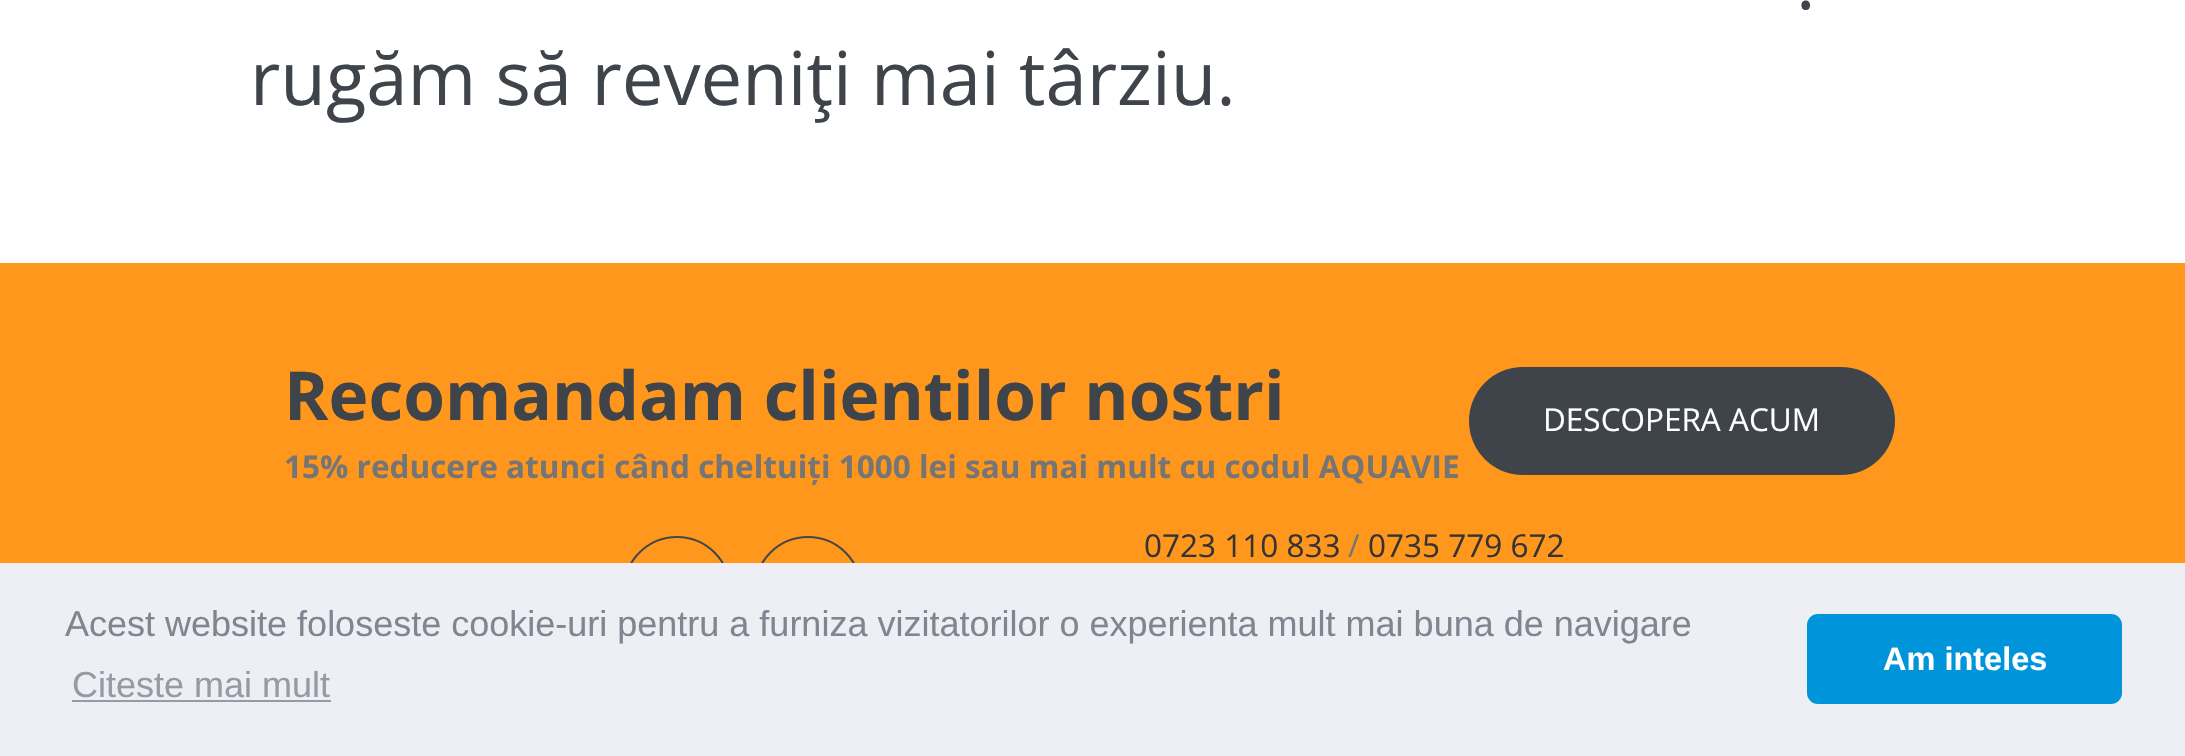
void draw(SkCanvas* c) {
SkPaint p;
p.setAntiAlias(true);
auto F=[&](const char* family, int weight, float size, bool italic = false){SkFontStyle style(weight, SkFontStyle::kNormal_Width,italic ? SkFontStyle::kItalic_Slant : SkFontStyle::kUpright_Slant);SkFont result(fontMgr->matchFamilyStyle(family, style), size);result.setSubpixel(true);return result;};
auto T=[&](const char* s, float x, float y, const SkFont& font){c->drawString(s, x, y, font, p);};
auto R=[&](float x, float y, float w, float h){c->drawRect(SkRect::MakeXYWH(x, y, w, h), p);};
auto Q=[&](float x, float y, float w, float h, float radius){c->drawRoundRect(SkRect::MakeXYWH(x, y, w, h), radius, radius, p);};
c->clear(0xffffffff);
auto f1 = F("Open Sans",400,74.25);
p.setColor(0xff3e444a);
T(".",1796,9,f1);
T("rugăm să reveniţi mai târziu.",250,105,f1);
p.setColor(0xffff971d);
R(0,263,2185,300);
auto f2 = F("Open Sans",700,67.5);
p.setColor(0xff3e444a);
T("Recomandam clientilor nostri",284,420,f2);
auto f3 = F("Open Sans",700,31.5);
p.setColor(0xff757575);
T("15% reducere atunci când cheltuiți 1000 lei sau mai mult cu codul AQUAVIE",284,478,f3);
p.setColor(0xff3e444a);
Q(1469,367,426,108,54);
auto f4 = F("Open Sans",400,31.5);
p.setColor(0xffffffff);
T("DESCOPERA ACUM",1543,431,f4);
p.setStroke(true);
p.setStrokeWidth(2);
p.setColor(0xff42474a);
c->drawCircle(677,590,53,p);
c->drawCircle(808,590,53,p);
p.setStroke(false);
p.setColor(0xff343434);
T("0723 110 833",1144,557,f4);
p.setColor(0xff757575);
T("/",1348,557,f4);
p.setColor(0xff343434);
T("0735 779 672",1368,557,f4);
p.setColor(0xffedeff5);
R(0,563,2185,193);
auto f5 = F("Liberation Sans",400,36);
p.setColor(0xff838391);
T("Acest website foloseste cookie-uri pentru a furniza vizitatorilor o experienta mult mai buna de navigare",65,636,f5);
p.setColor(0xff9899a5);
T("Citeste mai mult",72,697,f5);
R(72,700,259,2);
p.setColor(0xff0095da);
Q(1807,614,315,90,11);
auto f6 = F("Liberation Sans",700,32.5);
p.setColor(0xffffffff);
T("Am inteles",1883,670,f6);
}
